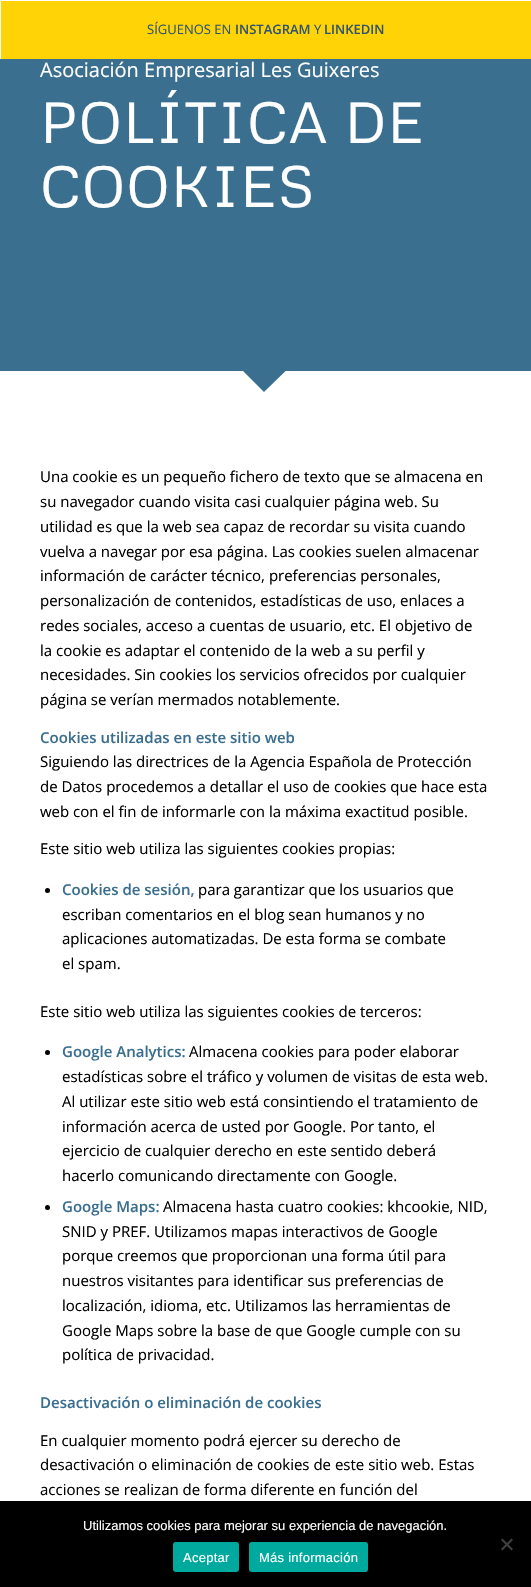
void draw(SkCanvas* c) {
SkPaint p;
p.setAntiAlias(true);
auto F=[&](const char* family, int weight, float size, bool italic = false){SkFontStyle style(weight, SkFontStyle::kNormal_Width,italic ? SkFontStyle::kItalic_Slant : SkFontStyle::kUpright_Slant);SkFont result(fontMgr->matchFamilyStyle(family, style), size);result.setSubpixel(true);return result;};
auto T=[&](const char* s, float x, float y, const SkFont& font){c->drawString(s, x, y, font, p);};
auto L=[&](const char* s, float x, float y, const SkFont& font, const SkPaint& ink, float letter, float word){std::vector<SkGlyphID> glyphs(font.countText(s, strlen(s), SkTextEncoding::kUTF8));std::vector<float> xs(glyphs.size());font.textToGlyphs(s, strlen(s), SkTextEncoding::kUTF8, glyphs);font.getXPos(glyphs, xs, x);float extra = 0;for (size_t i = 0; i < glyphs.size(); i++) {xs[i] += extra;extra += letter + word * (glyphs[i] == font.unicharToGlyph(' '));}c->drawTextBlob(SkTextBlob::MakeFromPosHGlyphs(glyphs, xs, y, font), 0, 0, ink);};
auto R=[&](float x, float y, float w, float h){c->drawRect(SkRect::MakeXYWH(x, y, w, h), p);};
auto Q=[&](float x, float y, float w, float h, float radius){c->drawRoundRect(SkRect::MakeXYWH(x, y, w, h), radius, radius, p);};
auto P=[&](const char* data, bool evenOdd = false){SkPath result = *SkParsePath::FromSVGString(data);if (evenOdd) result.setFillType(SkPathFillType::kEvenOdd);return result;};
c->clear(0xffffffff);
p.setColor(0xffffd305);
R(1,1,530,58);
auto f1 = F("Open Sans",400,13);
p.setColor(0xff315570);
T("SÍGUENOS EN",147,34,f1);
auto f2 = F("Open Sans",600,13);
T("INSTAGRAM",235,34,f2);
T("Y",314,34,f1);
T("LINKEDIN",324,34,f2);
p.setColor(0xff3a6f8f);
R(0,59,531,312);
auto f3 = F("Open Sans",400,20);
p.setColor(0xffffffff);
T("Asociación Empresarial Les Guixeres",40,77,f3);
auto f4 = F("Metrophobic",400,57.5);
L("POLÍTICA DE",40,143,f4,p,1,0);
L("COOKIES",40,207,f4,p,1,0);
c->save();
c->clipRect(SkRect::MakeXYWH(240,371,50,25));
p.setColor(0xff3a6f8f);
c->drawPath(P("M264 321l36 36l-36 35l-35-35z"),p);
c->restore();
auto f5 = F("Open Sans",400,15);
p.setColor(0xff000000);
T("Una cookie es un pequeño fichero de texto que se almacena en",40,482,f5);
T("su navegador cuando visita casi cualquier página web. Su",40,507,f5);
T("utilidad es que la web sea capaz de recordar su visita cuando",40,532,f5);
T("vuelva a navegar por esa página. Las cookies suelen almacenar",40,557,f5);
T("información de carácter técnico, preferencias personales,",40,581,f5);
T("personalización de contenidos, estadísticas de uso, enlaces a",40,606,f5);
T("redes sociales, acceso a cuentas de usuario, etc. El objetivo de",40,631,f5);
T("la cookie es adaptar el contenido de la web a su perfil y",40,656,f5);
T("necesidades. Sin cookies los servicios ofrecidos por cualquier",40,680,f5);
T("página se verían mermados notablemente.",40,705,f5);
auto f6 = F("Open Sans",600,15);
p.setColor(0xff3a6e8f);
T("Cookies utilizadas en este sitio web",40,743,f6);
p.setColor(0xff000000);
T("Siguiendo las directrices de la Agencia Española de Protección",40,767,f5);
T("de Datos procedemos a detallar el uso de cookies que hace esta",40,792,f5);
T("web con el fin de informarle con la máxima exactitud posible.",40,817,f5);
T("Este sitio web utiliza las siguientes cookies propias:",40,854,f5);
c->drawCircle(47.5,890.5,2.5,p);
p.setColor(0xff3a6e8f);
T("Cookies de sesión,",62,895,f6);
p.setColor(0xff000000);
T("para garantizar que los usuarios que",198,895,f5);
T("escriban comentarios en el blog sean humanos y no",62,920,f5);
T("aplicaciones automatizadas. De esta forma se combate",62,944,f5);
T("el spam.",62,969,f5);
T("Este sitio web utiliza las siguientes cookies de terceros:",40,1017,f5);
c->drawCircle(47.5,1052.5,2.5,p);
p.setColor(0xff3a6e8f);
T("Google Analytics:",62,1057,f6);
p.setColor(0xff000000);
T("Almacena cookies para poder elaborar",189,1057,f5);
T("estadísticas sobre el tráfico y volumen de visitas de esta web.",62,1082,f5);
T("Al utilizar este sitio web está consintiendo el tratamiento de",62,1107,f5);
T("información acerca de usted por Google. Por tanto, el",62,1132,f5);
T("ejercicio de cualquier derecho en este sentido deberá",62,1156,f5);
T("hacerlo comunicando directamente con Google.",62,1181,f5);
c->drawCircle(47.5,1207.5,2.5,p);
p.setColor(0xff3a6e8f);
T("Google Maps:",62,1212,f6);
p.setColor(0xff000000);
T("Almacena hasta cuatro cookies: khcookie, NID,",163,1212,f5);
T("SNID y PREF. Utilizamos mapas interactivos de Google",62,1237,f5);
T("porque creemos que proporcionan una forma útil para",62,1261,f5);
T("nuestros visitantes para identificar sus preferencias de",62,1286,f5);
T("localización, idioma, etc. Utilizamos las herramientas de",62,1311,f5);
T("Google Maps sobre la base de que Google cumple con su",62,1336,f5);
T("política de privacidad.",62,1360,f5);
p.setColor(0xff3a6e8f);
T("Desactivación o eliminación de cookies",40,1408,f6);
p.setColor(0xff000000);
T("En cualquier momento podrá ejercer su derecho de",40,1446,f5);
T("desactivación o eliminación de cookies de este sitio web. Estas",40,1470,f5);
T("acciones se realizan de forma diferente en función del",40,1495,f5);
R(0,1501,531,86);
auto f7 = F("Liberation Sans",400,13);
p.setColor(0xffffffff);
T("Utilizamos cookies para mejorar su experiencia de navegación.",83,1530,f7);
p.setColor(0xff404040);
c->drawPath(P("M511.5 1538.5l1.5 1.5l-10.5 10.5l-1.5-1.5z"),p);
c->drawPath(P("M501 1540l1.5-1.5l10.5 10.5l-1.5 1.5z"),p);
p.setColor(0xff00a99d);
Q(173,1542,66,30,3);
p.setColor(0xffffffff);
L("Aceptar",183,1562,f7,p,.25,0);
p.setColor(0xff00a99d);
Q(249,1542,119,30,3);
p.setColor(0xffffffff);
L("Más información",259,1562,f7,p,.25,0);
}
